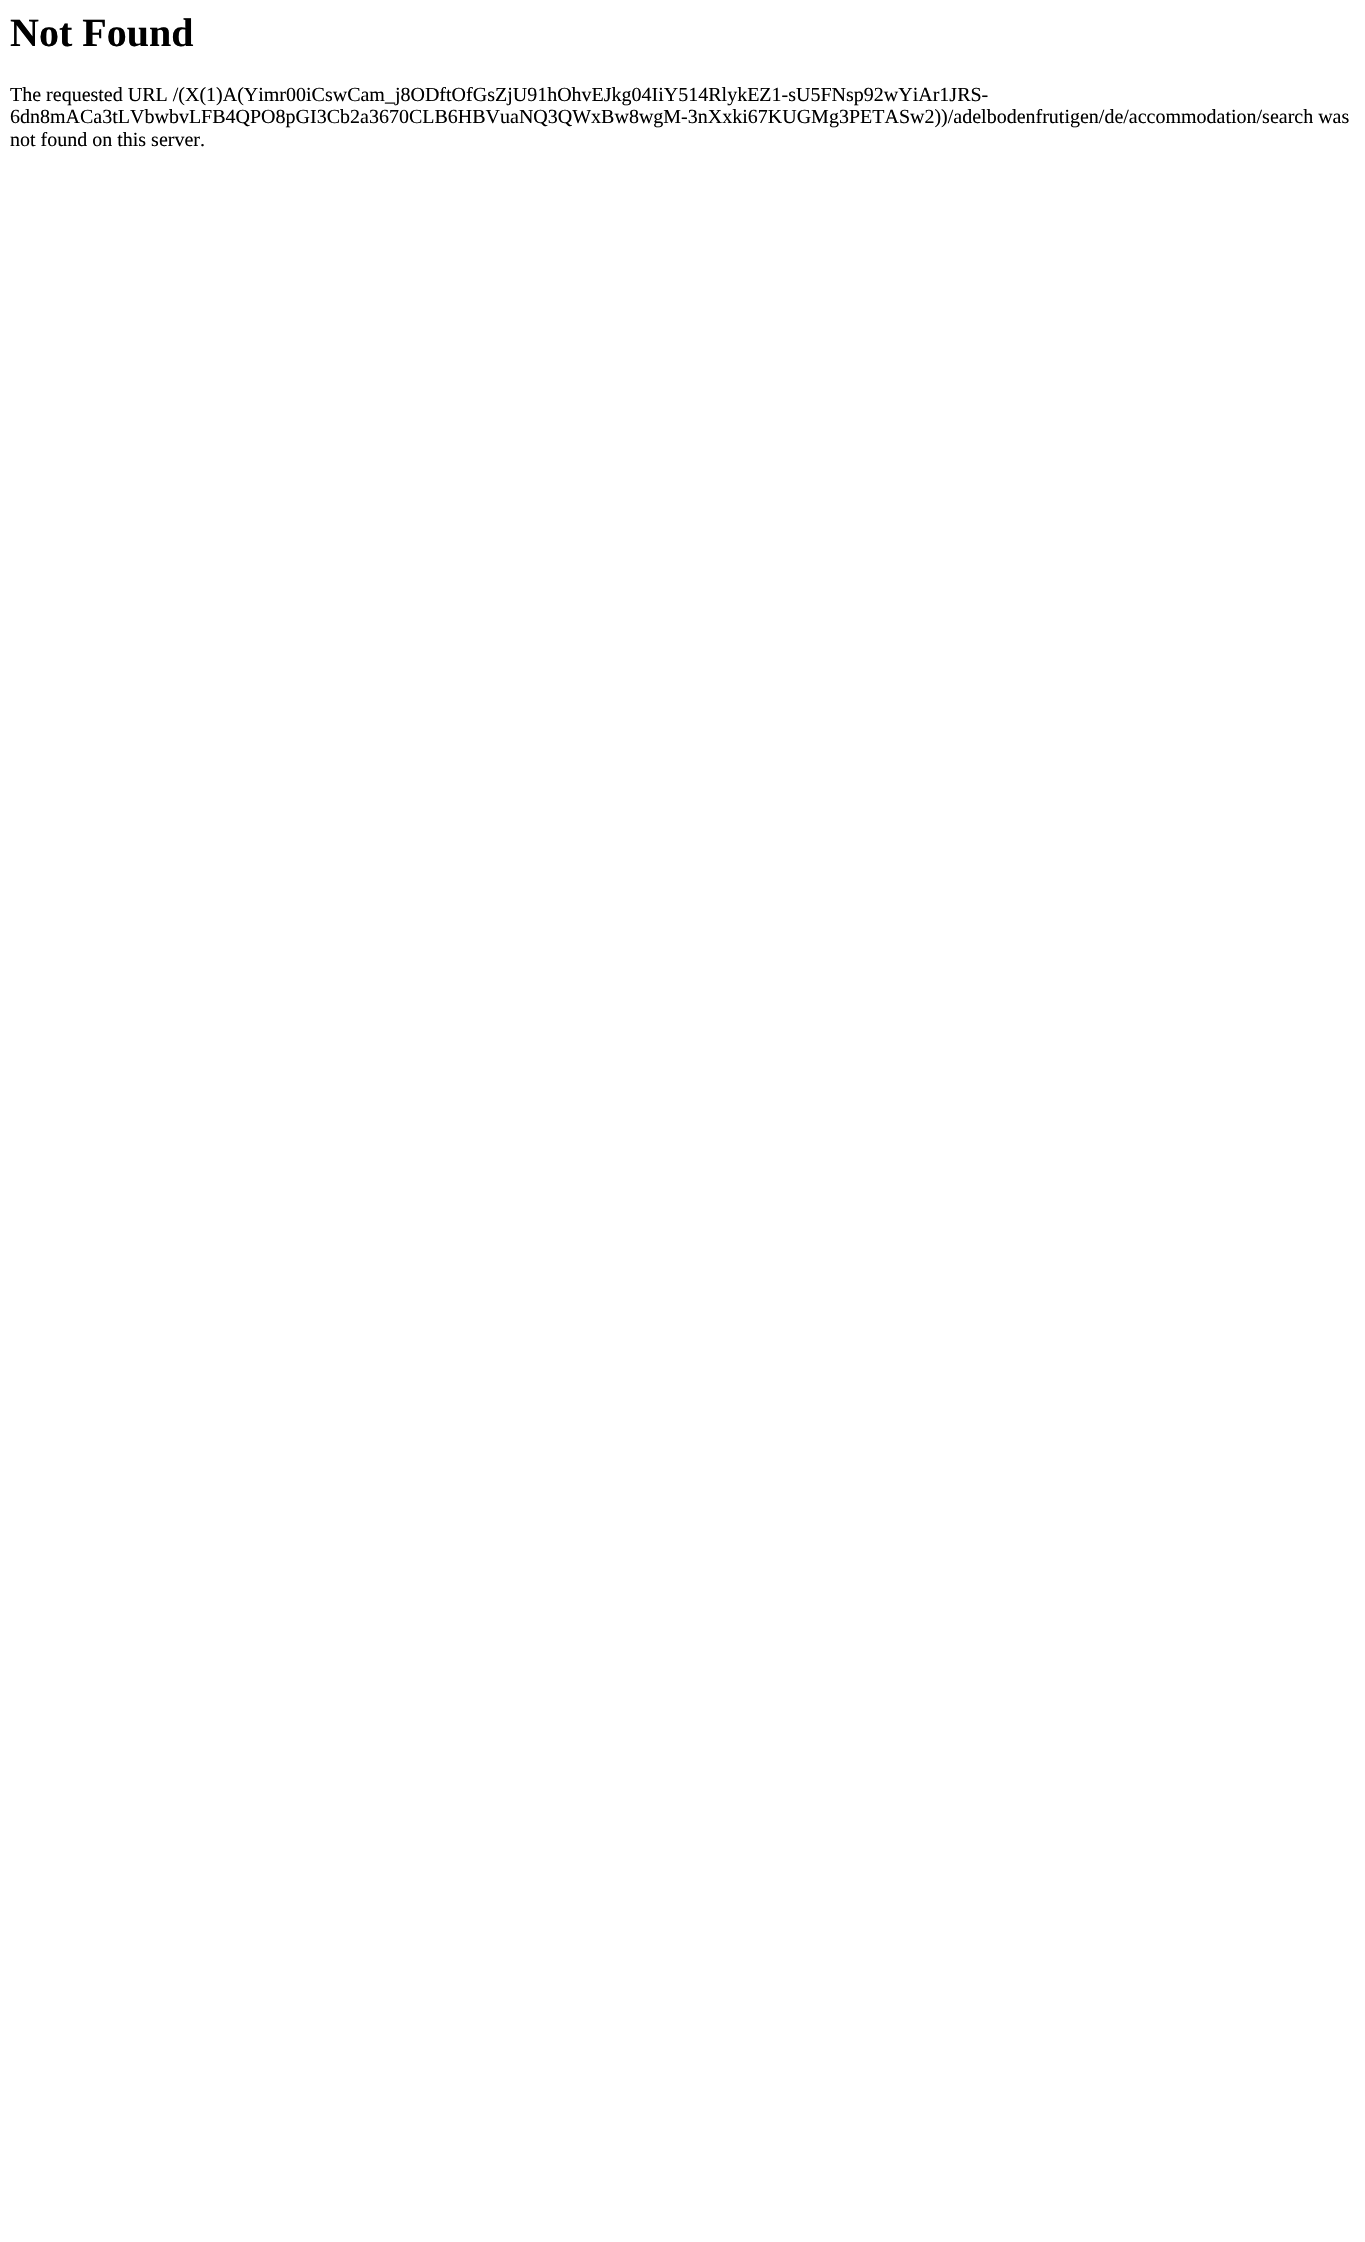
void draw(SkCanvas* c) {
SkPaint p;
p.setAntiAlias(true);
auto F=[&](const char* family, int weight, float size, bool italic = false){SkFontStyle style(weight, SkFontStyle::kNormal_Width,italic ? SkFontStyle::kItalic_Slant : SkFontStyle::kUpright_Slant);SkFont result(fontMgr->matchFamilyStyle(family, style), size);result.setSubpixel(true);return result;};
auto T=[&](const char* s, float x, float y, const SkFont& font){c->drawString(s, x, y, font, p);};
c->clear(0xffffffff);
auto f1 = F("Liberation Serif",700,40);
p.setColor(0xff000000);
T("Not Found",10,46,f1);
auto f2 = F("Liberation Serif",400,20);
T("The requested URL /(X(1)A(Yimr00iCswCam_j8ODftOfGsZjU91hOhvEJkg04IiY514RlykEZ1-sU5FNsp92wYiAr1JRS-",10,101,f2);
T("6dn8mACa3tLVbwbvLFB4QPO8pGI3Cb2a3670CLB6HBVuaNQ3QWxBw8wgM-3nXxki67KUGMg3PETASw2))/adelbodenfrutigen/de/accommodation/search was",10,123,f2);
T("not found on this server.",10,146,f2);
}
